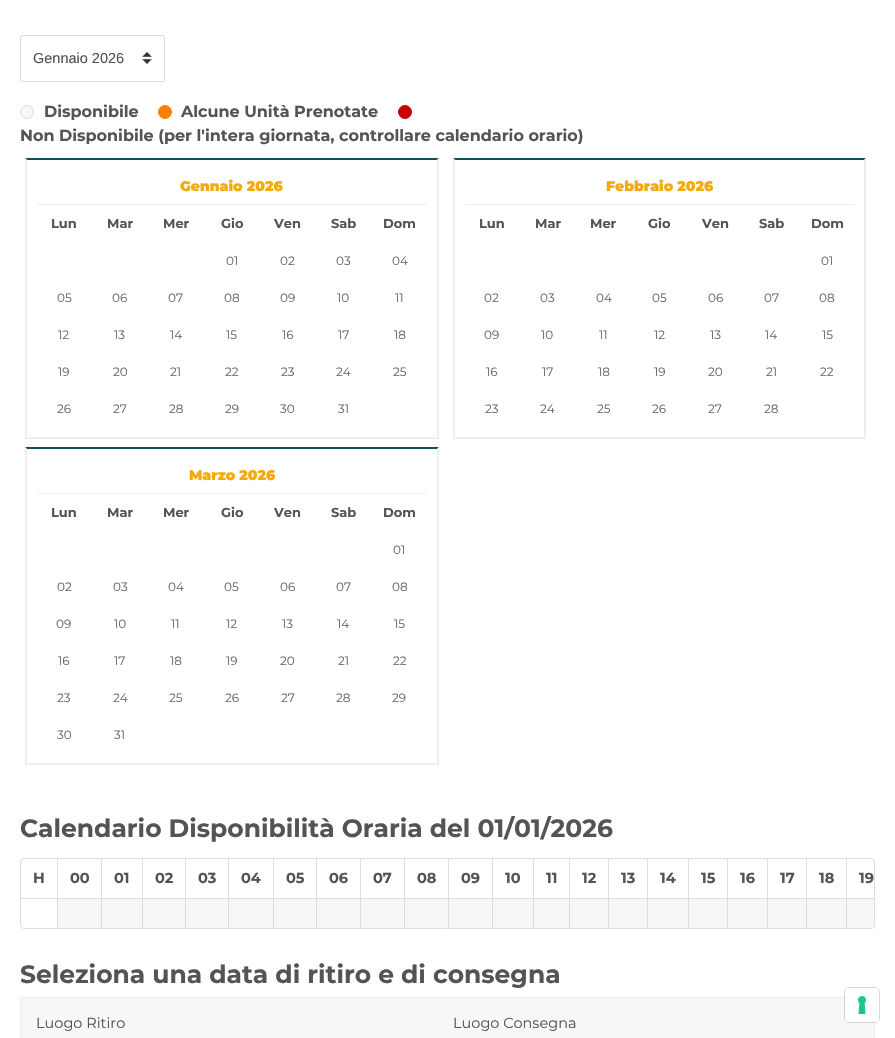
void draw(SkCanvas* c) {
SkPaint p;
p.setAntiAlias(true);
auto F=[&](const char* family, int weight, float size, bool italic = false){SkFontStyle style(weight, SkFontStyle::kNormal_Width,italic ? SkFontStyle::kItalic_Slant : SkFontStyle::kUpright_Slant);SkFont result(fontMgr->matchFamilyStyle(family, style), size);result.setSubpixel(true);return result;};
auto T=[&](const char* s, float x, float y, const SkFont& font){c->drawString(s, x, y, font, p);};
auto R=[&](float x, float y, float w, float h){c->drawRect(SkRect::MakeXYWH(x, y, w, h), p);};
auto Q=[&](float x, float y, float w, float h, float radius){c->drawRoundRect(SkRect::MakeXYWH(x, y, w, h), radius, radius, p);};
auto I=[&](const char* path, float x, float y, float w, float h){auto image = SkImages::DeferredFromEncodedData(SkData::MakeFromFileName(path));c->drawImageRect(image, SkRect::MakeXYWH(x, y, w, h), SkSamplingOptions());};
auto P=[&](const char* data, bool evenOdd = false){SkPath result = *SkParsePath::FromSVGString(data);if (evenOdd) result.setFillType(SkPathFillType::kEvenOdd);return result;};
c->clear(0xffffffff);
I("1.png",142,52,10,12);
p.setStroke(true);
p.setStrokeWidth(1);
p.setColor(0xffdddddd);
c->drawRoundRect(SkRect::MakeXYWH(20.5,35.5,144,46),1.5,1.5,p);
auto f1 = F("Liberation Sans",400,14.5);
p.setStroke(false);
p.setColor(0xff495057);
T("Gennaio 2026",33,63,f1);
p.setColor(0xfff6f7f7);
c->drawCircle(27,112,6.5,p);
p.setStroke(true);
p.setColor(0xffdddddd);
c->drawCircle(27,112,6.5,p);
auto f2 = F("Montserrat",700,16);
p.setStroke(false);
p.setColor(0xff545454);
T("Disponibile",44,117,f2);
p.setColor(0xffff8000);
c->drawCircle(165,112,6.5,p);
p.setStroke(true);
c->drawCircle(165,112,6.5,p);
p.setStroke(false);
p.setColor(0xff545454);
T("Alcune Unità Prenotate",181,117,f2);
p.setColor(0xffc70000);
c->drawCircle(405,112,6.5,p);
p.setStroke(true);
c->drawCircle(405,112,6.5,p);
p.setStroke(false);
p.setColor(0xff545454);
T("Non Disponibile (per l'intera giornata, controllare calendario orario)",20,141,f2);
p.setColor(0xff144d5c);
c->drawPath(P("M25 158h414l-2 2h-410z"),p);
p.setColor(0xffeeeeee);
c->drawPath(P("M439 158v281l-2-2v-277z"),p);
R(25,437,414,2);
c->drawPath(P("M25 439v-281l2 2v277z"),p);
R(37,204,390,1);
auto f3 = F("Montserrat",900,14);
p.setColor(0xfff6aa0a);
T("Gennaio 2026",180,191,f3);
auto f4 = F("Montserrat",700,13);
p.setColor(0xff545454);
T("Lun",51,228,f4);
T("Mar",107,228,f4);
T("Mer",163,228,f4);
T("Gio",221,228,f4);
T("Ven",274,228,f4);
T("Sab",331,228,f4);
T("Dom",383,228,f4);
auto f5 = F("Montserrat",400,12);
p.setColor(0xff666666);
T("01",226,265,f5);
T("02",280,265,f5);
T("03",336,265,f5);
T("04",392,265,f5);
T("05",57,302,f5);
T("06",112,302,f5);
T("07",168,302,f5);
T("08",224,302,f5);
T("09",280,302,f5);
T("10",337,302,f5);
T("11",395,302,f5);
T("12",58,339,f5);
T("13",114,339,f5);
T("14",170,339,f5);
T("15",226,339,f5);
T("16",282,339,f5);
T("17",338,339,f5);
T("18",394,339,f5);
T("19",58,376,f5);
T("20",113,376,f5);
T("21",170,376,f5);
T("22",225,376,f5);
T("23",281,376,f5);
T("24",336,376,f5);
T("25",393,376,f5);
T("26",57,413,f5);
T("27",113,413,f5);
T("28",169,413,f5);
T("29",225,413,f5);
T("30",280,413,f5);
T("31",338,413,f5);
p.setColor(0xff144d5c);
c->drawPath(P("M453 158h413l-2 2h-409z"),p);
p.setColor(0xffeeeeee);
c->drawPath(P("M866 158v281l-2-2v-277z"),p);
R(453,437,413,2);
c->drawPath(P("M453 439v-281l2 2v277z"),p);
R(465,204,389,1);
p.setColor(0xfff6aa0a);
T("Febbraio 2026",606,191,f3);
p.setColor(0xff545454);
T("Lun",479,228,f4);
T("Mar",535,228,f4);
T("Mer",590,228,f4);
T("Gio",648,228,f4);
T("Ven",702,228,f4);
T("Sab",759,228,f4);
T("Dom",811,228,f4);
p.setColor(0xff666666);
T("01",821,265,f5);
T("02",484,302,f5);
T("03",540,302,f5);
T("04",596,302,f5);
T("05",652,302,f5);
T("06",708,302,f5);
T("07",764,302,f5);
T("08",819,302,f5);
T("09",484,339,f5);
T("10",541,339,f5);
T("11",599,339,f5);
T("12",654,339,f5);
T("13",710,339,f5);
T("14",765,339,f5);
T("15",822,339,f5);
T("16",486,376,f5);
T("17",542,376,f5);
T("18",598,376,f5);
T("19",654,376,f5);
T("20",708,376,f5);
T("21",766,376,f5);
T("22",820,376,f5);
T("23",485,413,f5);
T("24",540,413,f5);
T("25",597,413,f5);
T("26",652,413,f5);
T("27",708,413,f5);
T("28",764,413,f5);
p.setColor(0xff144d5c);
c->drawPath(P("M25 447h414l-2 2h-410z"),p);
p.setColor(0xffeeeeee);
c->drawPath(P("M439 447v318l-2-2v-314z"),p);
R(25,763,414,2);
c->drawPath(P("M25 765v-318l2 2v314z"),p);
R(37,493,390,1);
p.setColor(0xfff6aa0a);
T("Marzo 2026",189,480,f3);
p.setColor(0xff545454);
T("Lun",51,517,f4);
T("Mar",107,517,f4);
T("Mer",163,517,f4);
T("Gio",221,517,f4);
T("Ven",274,517,f4);
T("Sab",331,517,f4);
T("Dom",383,517,f4);
p.setColor(0xff666666);
T("01",393,554,f5);
T("02",57,591,f5);
T("03",113,591,f5);
T("04",168,591,f5);
T("05",224,591,f5);
T("06",280,591,f5);
T("07",336,591,f5);
T("08",392,591,f5);
T("09",56,628,f5);
T("10",114,628,f5);
T("11",171,628,f5);
T("12",226,628,f5);
T("13",282,628,f5);
T("14",337,628,f5);
T("15",394,628,f5);
T("16",58,665,f5);
T("17",114,665,f5);
T("18",170,665,f5);
T("19",226,665,f5);
T("20",280,665,f5);
T("21",338,665,f5);
T("22",393,665,f5);
T("23",57,702,f5);
T("24",113,702,f5);
T("25",169,702,f5);
T("26",225,702,f5);
T("27",281,702,f5);
T("28",336,702,f5);
T("29",392,702,f5);
T("30",57,739,f5);
T("31",114,739,f5);
auto f6 = F("Montserrat",700,25);
p.setColor(0xff545454);
T("Calendario Disponibilità Oraria del 01/01/2026",20,837,f6);
p.setStroke(true);
p.setColor(0xffdddddd);
c->drawRoundRect(SkRect::MakeXYWH(20.5,858.5,854,70),3.5,3.5,p);
p.setStroke(false);
p.setColor(0xfff6f7f7);
c->drawPath(P("M847 898h27v27c0 1.5-1.5 3-3 3h-24z"),p);
p.setColor(0xffdddddd);
R(21,898,853,1);
p.setColor(0xfff6f7f7);
R(58,899,43,29);
p.setColor(0xffdddddd);
R(57,859,1,69);
p.setColor(0xfff6f7f7);
R(102,899,40,29);
p.setColor(0xffdddddd);
R(101,859,1,69);
p.setColor(0xfff6f7f7);
R(143,899,42,29);
p.setColor(0xffdddddd);
R(142,859,1,69);
p.setColor(0xfff6f7f7);
R(186,899,42,29);
p.setColor(0xffdddddd);
R(185,859,1,69);
p.setColor(0xfff6f7f7);
R(229,899,44,29);
p.setColor(0xffdddddd);
R(228,859,1,69);
p.setColor(0xfff6f7f7);
R(274,899,42,29);
p.setColor(0xffdddddd);
R(273,859,1,69);
p.setColor(0xfff6f7f7);
R(317,899,43,29);
p.setColor(0xffdddddd);
R(316,859,1,69);
p.setColor(0xfff6f7f7);
R(361,899,43,29);
p.setColor(0xffdddddd);
R(360,859,1,69);
p.setColor(0xfff6f7f7);
R(405,899,43,29);
p.setColor(0xffdddddd);
R(404,859,1,69);
p.setColor(0xfff6f7f7);
R(449,899,43,29);
p.setColor(0xffdddddd);
R(448,859,1,69);
p.setColor(0xfff6f7f7);
R(493,899,40,29);
p.setColor(0xffdddddd);
R(492,859,1,69);
p.setColor(0xfff6f7f7);
R(534,899,35,29);
p.setColor(0xffdddddd);
R(533,859,1,69);
p.setColor(0xfff6f7f7);
R(570,899,38,29);
p.setColor(0xffdddddd);
R(569,859,1,69);
p.setColor(0xfff6f7f7);
R(609,899,38,29);
p.setColor(0xffdddddd);
R(608,859,1,69);
p.setColor(0xfff6f7f7);
R(648,899,40,29);
p.setColor(0xffdddddd);
R(647,859,1,69);
p.setColor(0xfff6f7f7);
R(689,899,38,29);
p.setColor(0xffdddddd);
R(688,859,1,69);
p.setColor(0xfff6f7f7);
R(728,899,39,29);
p.setColor(0xffdddddd);
R(727,859,1,69);
p.setColor(0xfff6f7f7);
R(768,899,38,29);
p.setColor(0xffdddddd);
R(767,859,1,69);
p.setColor(0xfff6f7f7);
R(807,899,39,29);
p.setColor(0xffdddddd);
R(806,859,1,69);
R(846,859,1,69);
auto f7 = F("Montserrat",700,14.5);
p.setColor(0xff545454);
T("H",33,883,f7);
T("00",70,883,f7);
T("01",114,883,f7);
T("02",155,883,f7);
T("03",198,883,f7);
T("04",241,883,f7);
T("05",286,883,f7);
T("06",329,883,f7);
T("07",373,883,f7);
T("08",417,883,f7);
T("09",461,883,f7);
T("10",505,883,f7);
T("11",546,883,f7);
T("12",582,883,f7);
T("13",621,883,f7);
T("14",660,883,f7);
T("15",701,883,f7);
T("16",740,883,f7);
T("17",780,883,f7);
T("18",819,883,f7);
T("19",859,883,f7);
T("Seleziona una data di ritiro e di consegna",20,983,f6);
p.setColor(0xfff6f7f7);
c->drawRect(SkRect::MakeXYWH(20.5,997.5,854,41),p);
p.setStroke(true);
p.setColor(0xffeeeeee);
c->drawRect(SkRect::MakeXYWH(20.5,997.5,854,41),p);
auto f8 = F("Montserrat",400,14.5);
p.setStroke(false);
p.setColor(0xff545454);
T("Luogo Ritiro",36,1028,f8);
T("Luogo Consegna",453,1028,f8);
p.setStroke(true);
p.setColor(0x26000000);
c->drawRoundRect(SkRect::MakeXYWH(844.5,987.5,35,35),4.5,4.5,p);
p.setStroke(false);
p.setColor(0xffffffff);
Q(845,988,34,34,4);
I("2.png",858,996,8,18);
}
